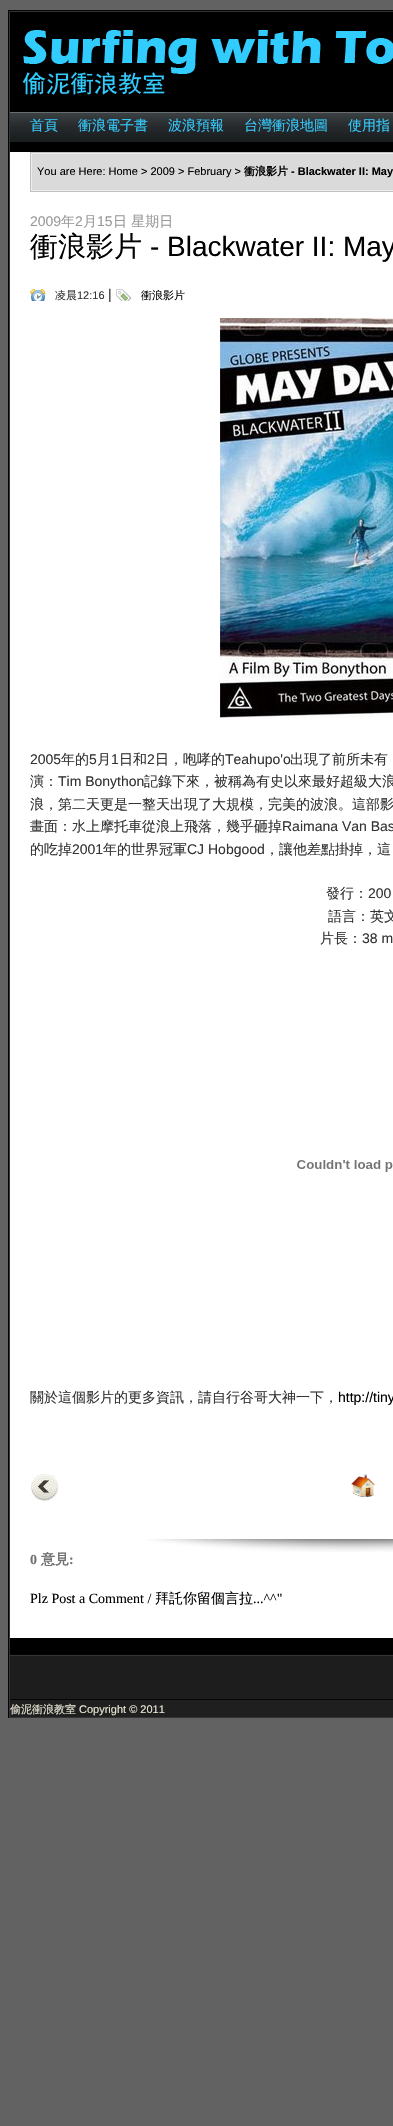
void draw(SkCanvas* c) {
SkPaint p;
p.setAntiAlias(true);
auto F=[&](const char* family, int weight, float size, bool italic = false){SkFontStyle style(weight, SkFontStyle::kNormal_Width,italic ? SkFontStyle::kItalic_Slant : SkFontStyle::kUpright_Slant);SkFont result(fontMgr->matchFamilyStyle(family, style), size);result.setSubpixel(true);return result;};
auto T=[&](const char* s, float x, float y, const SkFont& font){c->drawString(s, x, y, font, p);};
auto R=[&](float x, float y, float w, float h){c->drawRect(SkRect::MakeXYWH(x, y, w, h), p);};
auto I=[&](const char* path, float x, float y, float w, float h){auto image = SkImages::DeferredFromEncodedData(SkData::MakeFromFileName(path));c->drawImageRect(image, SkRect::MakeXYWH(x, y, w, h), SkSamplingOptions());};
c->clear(0xff626262);
p.setColor(0xff050505);
R(8,10,385,1);
R(8,10,1,1708);
p.setColor(0xff353434);
R(9,11,384,1);
R(9,11,1,1707);
I("1.png",10,12,383,100);
I("2.png",10,113,383,29);
p.setColor(0xff686d6f);
R(10,112,383,1);
auto f1 = F("WenQuanYi Zen Hei",500,14);
p.setColor(0xff34cbff);
T("首頁",30,130,f1);
T("衝浪電子書",78,130,f1);
T("波浪預報",168,130,f1);
T("台灣衝浪地圖",244,130,f1);
T("使用指",348,130,f1);
p.setColor(0xff000000);
R(10,142,383,1512);
p.setColor(0xffffffff);
R(10,152,383,1486);
p.setStroke(true);
p.setStrokeWidth(1);
p.setColor(0xffc1c1c1);
c->drawRect(SkRect::MakeXYWH(30.5,152.5,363,39),p);
p.setStroke(false);
p.setColor(0xffdadada);
c->drawRect(SkRect::MakeXYWH(31.5,153.5,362,37),p);
p.setStroke(true);
p.setColor(0xffeceee7);
c->drawRect(SkRect::MakeXYWH(31.5,153.5,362,37),p);
auto f2 = F("Liberation Sans",400,11);
p.setStroke(false);
p.setColor(0xff000000);
T("You are Here: Home > 2009 > February >",37,175,f2);
auto f3 = F("WenQuanYi Zen Hei",700,11);
T("衝浪影片",244,175,f3);
auto f4 = F("Liberation Sans",700,11);
T("- Blackwater II: May",291,175,f4);
auto f5 = F("Liberation Sans",400,14);
p.setColor(0xff999999);
T("2009",30,226,f5);
T("年",61,226,f1);
T("2",75,226,f5);
T("月",83,226,f1);
T("15",97,226,f5);
T("日 星期日",113,226,f1);
auto f6 = F("WenQuanYi Zen Hei",500,28);
p.setColor(0xff000000);
T("衝浪影片",30,256,f6);
auto f7 = F("Liberation Sans",400,28);
T("- Blackwater II: May",150,256,f7);
I("3.png",30,289,16,12);
auto f8 = F("WenQuanYi Zen Hei",500,11);
p.setColor(0xff333333);
T("凌晨",55,299,f8);
T("12:16",77,299,f2);
T("|",108,299,f5);
I("4.png",116,289,16,12);
p.setColor(0xff000000);
T("衝浪影片",141,299,f8);
I("5.png",220,318,173,400);
p.setColor(0xff333333);
T("2005",30,764,f5);
T("年的",61,764,f1);
T("5",89,764,f5);
T("月",97,764,f1);
T("1",111,764,f5);
T("日和",119,764,f1);
T("2",147,764,f5);
T("日，咆哮的",155,764,f1);
T("Teahupo'o",225,764,f5);
T("出現了前所未有",290,764,f1);
T("演：",30,786,f1);
T("Tim Bonython",58,786,f5);
T("記錄下來，被稱為有史以來最好超級大浪",144,786,f1);
T("浪，第二天更是一整天出現了大規模，完美的波浪。這部影",30,809,f1);
T("畫面：水上摩托車從浪上飛落，幾乎砸掉",30,831,f1);
T("Raimana Van Bas",282,831,f5);
T("的吃掉",30,854,f1);
T("2001",72,854,f5);
T("年的世界冠軍",103,854,f1);
T("CJ Hobgood",187,854,f5);
T("，讓他差點掛掉，這",265,854,f1);
T("發行：",326,898,f1);
T("200",368,898,f5);
T("語言：英文",328,921,f1);
T("片長：",320,943,f1);
T("38 m",362,943,f5);
I("6.png",297,1160,96,12);
T("關於這個影片的更多資訊，請自行谷哥大神一下，",30,1402,f1);
p.setColor(0xff000000);
T("http://tiny",338,1402,f5);
I("7.png",31,1474,27,27);
I("8.png",351,1474,24,24);
I("9.png",147,1539,246,13);
auto f9 = F("Liberation Serif",700,14);
p.setColor(0xff717171);
T("0",30,1564,f9);
auto f10 = F("WenQuanYi Zen Hei",700,14);
T("意見",41,1564,f10);
T(":",69,1564,f9);
auto f11 = F("Liberation Serif",400,14);
p.setColor(0xff000000);
T("Plz Post a Comment /",30,1603,f11);
T("拜託你留個言拉",155,1603,f1);
T("...^^\"",253,1603,f11);
p.setColor(0xff050505);
R(10,1654,383,1);
p.setColor(0xff353434);
R(10,1717,383,1);
p.setColor(0xff1d1d1d);
R(10,1656,383,43);
p.setColor(0xff353434);
R(10,1655,383,1);
p.setColor(0xff050505);
R(10,1699,383,1);
p.setColor(0xff1f1f1f);
R(10,1700,383,17);
p.setColor(0xffe8e5d4);
T("偷泥衝浪教室",10,1713,f8);
T("Copyright © 2011",79,1713,f2);
}
